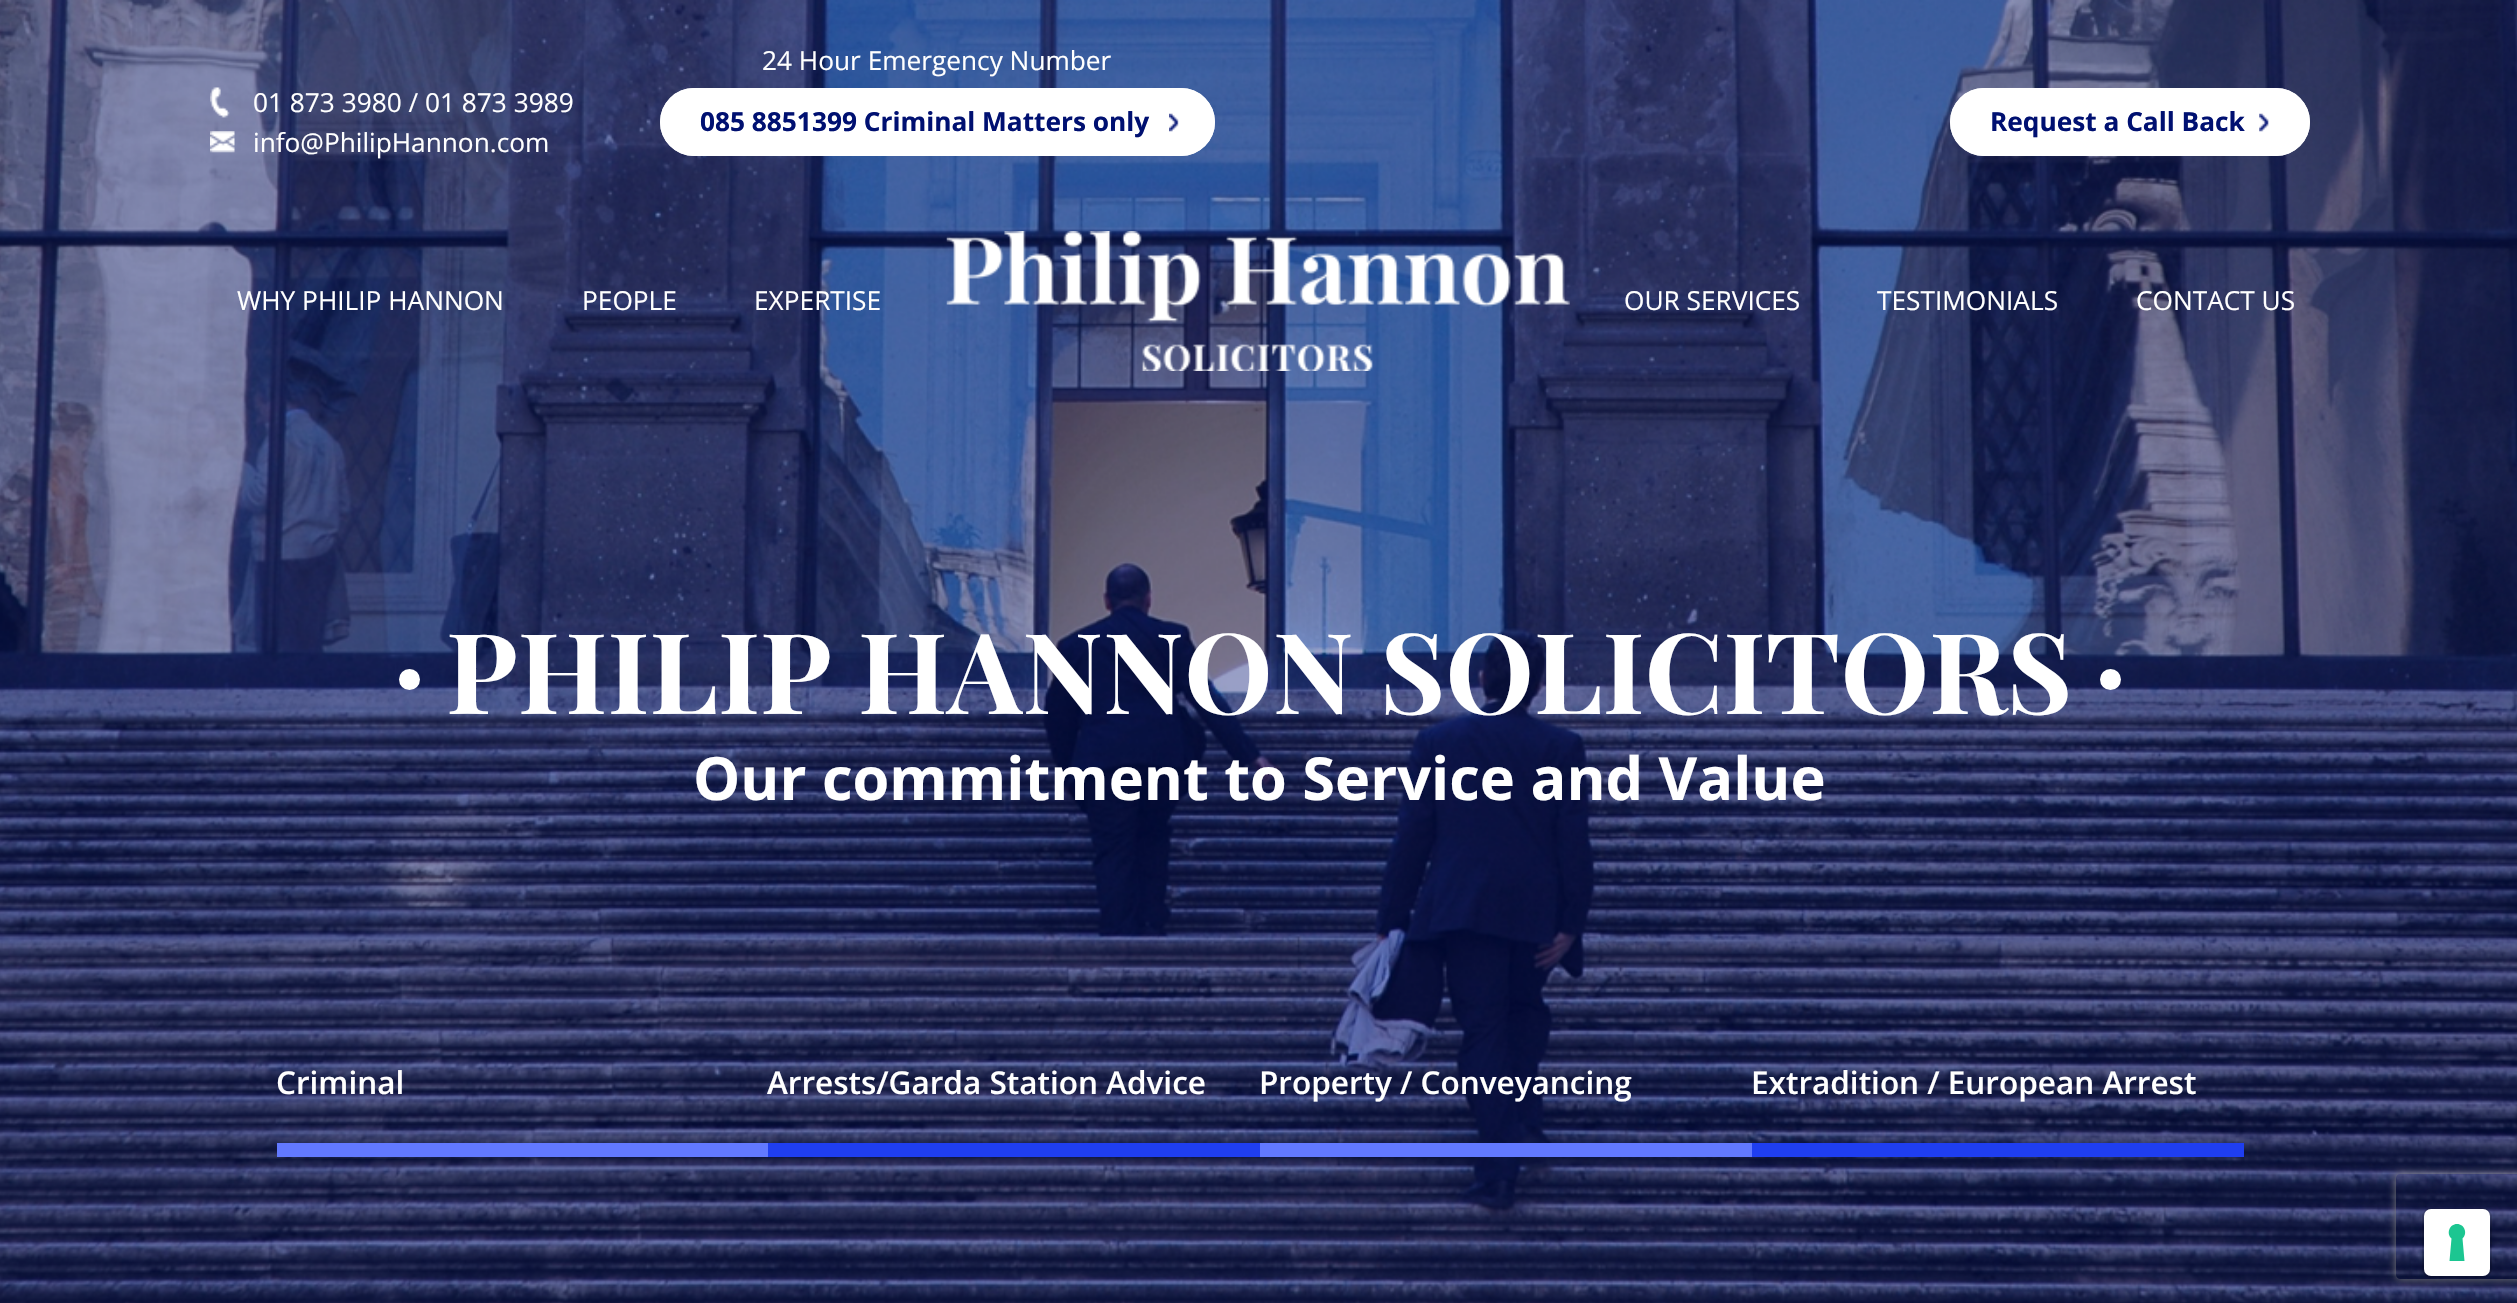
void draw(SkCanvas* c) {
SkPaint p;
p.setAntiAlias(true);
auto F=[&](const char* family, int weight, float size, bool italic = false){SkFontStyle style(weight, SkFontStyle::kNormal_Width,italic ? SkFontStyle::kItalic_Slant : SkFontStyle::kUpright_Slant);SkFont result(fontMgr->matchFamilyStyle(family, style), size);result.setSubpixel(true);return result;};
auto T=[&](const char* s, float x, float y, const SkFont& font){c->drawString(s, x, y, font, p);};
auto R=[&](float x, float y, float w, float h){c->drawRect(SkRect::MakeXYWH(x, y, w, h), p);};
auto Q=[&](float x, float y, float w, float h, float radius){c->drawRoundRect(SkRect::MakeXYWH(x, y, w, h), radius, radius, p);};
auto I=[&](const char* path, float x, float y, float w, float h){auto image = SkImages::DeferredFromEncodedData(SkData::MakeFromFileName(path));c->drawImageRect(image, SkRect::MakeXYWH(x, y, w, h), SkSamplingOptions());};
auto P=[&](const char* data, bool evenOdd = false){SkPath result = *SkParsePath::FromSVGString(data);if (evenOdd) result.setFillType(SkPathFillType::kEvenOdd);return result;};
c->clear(0xffffffff);
I("1.png",0,0,2517,1303);
I("2.png",210,87,20,31);
auto f1 = F("Open Sans",400,26.25);
p.setColor(0xffffffff);
T("01 873 3980 / 01 873 3989",253,112,f1);
I("3.png",210,131,25,22);
T("info@PhilipHannon.com",253,152,f1);
T("24 Hour Emergency Number",762,70,f1);
Q(660,88,555,68,34);
I("4.png",1169,113,10,19);
p.setStroke(true);
p.setStrokeWidth(2);
c->drawRoundRect(SkRect::MakeXYWH(661,89,553,66),33,33,p);
auto f2 = F("Open Sans",700,26.25);
p.setStroke(false);
p.setColor(0xff001071);
T("085 8851399 Criminal Matters only",700,131,f2);
p.setColor(0xffffffff);
Q(1950,88,360,68,34);
I("5.png",2259,113,10,19);
p.setStroke(true);
c->drawRoundRect(SkRect::MakeXYWH(1951,89,358,66),33,33,p);
p.setStroke(false);
p.setColor(0xff001071);
T("Request a Call Back",1990,131,f2);
p.setColor(0xffffffff);
T("WHY PHILIP HANNON",237,310,f1);
T("PEOPLE",582,310,f1);
T("EXPERTISE",754,310,f1);
I("6.png",946,231,624,140);
T("OUR SERVICES",1624,310,f1);
T("TESTIMONIALS",1877,310,f1);
T("CONTACT US",2136,310,f1);
c->drawCircle(409.5,679.5,10.5,p);
auto f3 = F("Playfair Display SC",700,112);
T("PHILIP HANNON SOLICITORS",446,714,f3);
c->drawCircle(2110.5,679.5,10.5,p);
auto f4 = F("Open Sans",700,59.5);
T("Our commitment to Service and Value",693,800,f4);
auto f5 = F("Open Sans",600,31.5);
T("Criminal",276,1094,f5);
p.setColor(0xff6279ff);
R(277,1143,491,14);
p.setColor(0xffffffff);
T("Arrests/Garda Station Advice",767,1094,f5);
p.setColor(0xff1f3ef0);
R(768,1143,492,14);
p.setColor(0xffffffff);
T("Property / Conveyancing",1259,1094,f5);
p.setColor(0xff6279ff);
R(1260,1143,492,14);
p.setColor(0xffffffff);
T("Extradition / European Arrest",1751,1094,f5);
p.setColor(0xff1f3ef0);
R(1752,1143,492,14);
c->save();
c->clipPath(P("M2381 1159h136v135h-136zm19 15h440c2 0 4 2 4 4v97c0 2-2 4-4 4h-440c-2 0-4-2-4-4v-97c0-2 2-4 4-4z",true),true);
p.setColor(0xff808080);
p.setMaskFilter(SkMaskFilter::MakeBlur(kNormal_SkBlurStyle, 4.5));
c->drawRoundRect(SkRect::MakeXYWH(2396,1174,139,105),4,4,p);
p.setMaskFilter(nullptr);
c->restore();
p.setStroke(true);
p.setColor(0x26000000);
c->drawRoundRect(SkRect::MakeXYWH(2423,1209,68,68),8,8,p);
p.setStroke(false);
p.setColor(0xffffffff);
Q(2424,1209,66,67,7);
p.setColor(0xff1cc691);
c->drawPath(P("M2457 1224c7.5 0 11 9.5 5.5 14.5l2 22.5h-15l2-22.5c-5.5-5-2-14.5 5.5-14.5z",true),p);
}
